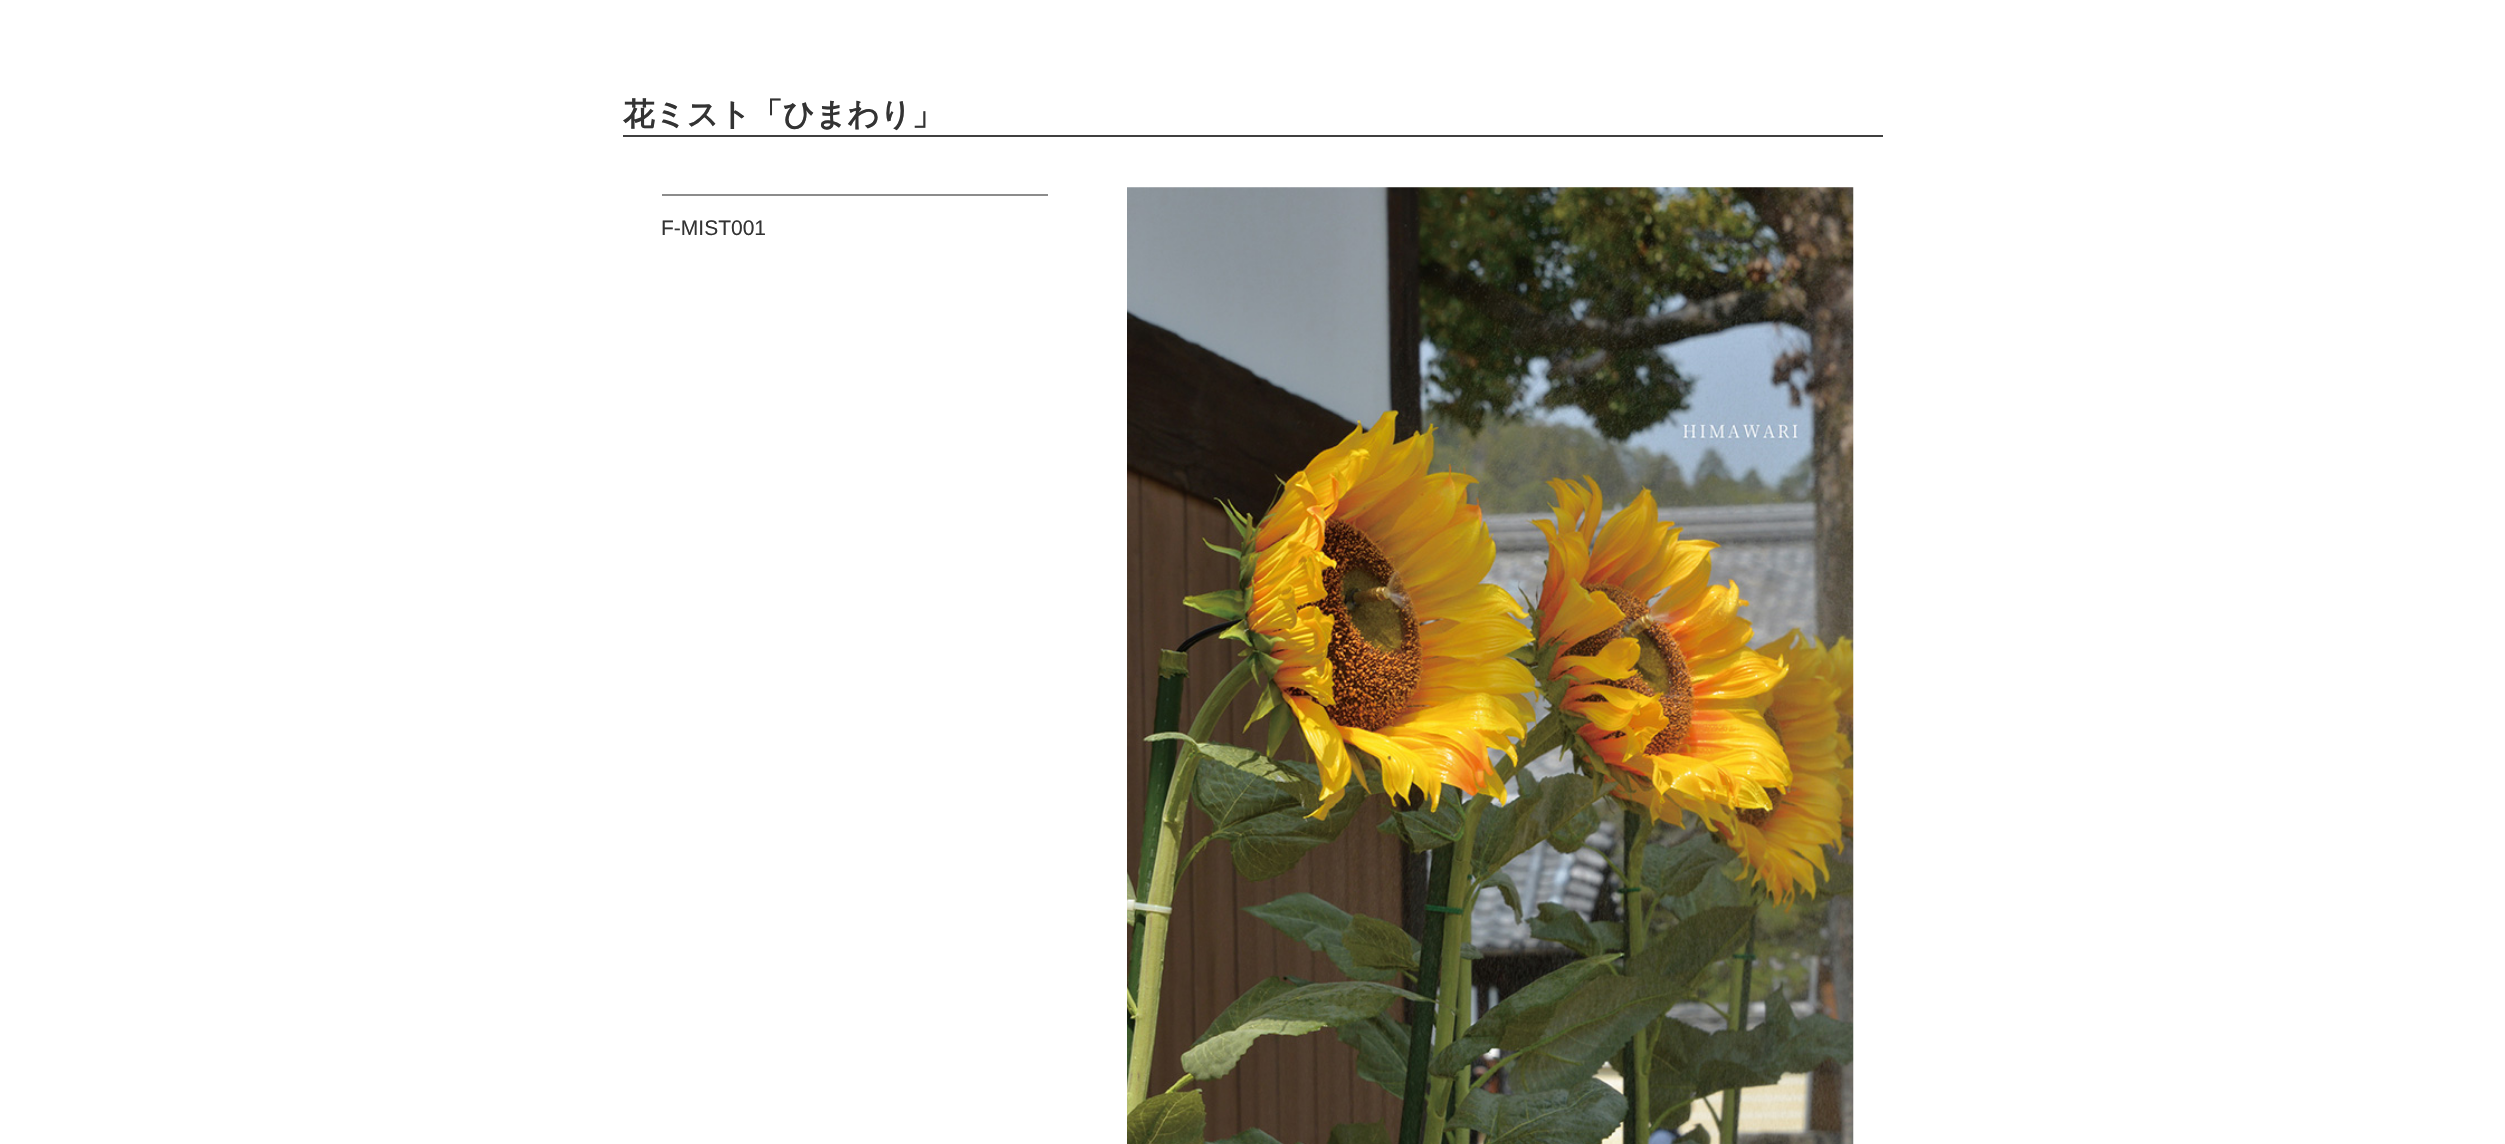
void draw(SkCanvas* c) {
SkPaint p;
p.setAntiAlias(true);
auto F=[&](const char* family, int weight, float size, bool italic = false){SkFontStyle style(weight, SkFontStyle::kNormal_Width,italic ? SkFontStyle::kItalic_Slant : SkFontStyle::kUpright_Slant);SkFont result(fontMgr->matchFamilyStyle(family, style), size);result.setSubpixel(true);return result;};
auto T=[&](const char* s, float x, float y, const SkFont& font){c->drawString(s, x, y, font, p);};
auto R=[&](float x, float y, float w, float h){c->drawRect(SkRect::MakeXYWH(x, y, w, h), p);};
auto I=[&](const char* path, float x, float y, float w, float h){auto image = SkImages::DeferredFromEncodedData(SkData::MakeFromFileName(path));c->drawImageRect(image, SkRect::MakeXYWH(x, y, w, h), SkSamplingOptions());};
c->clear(0xffffffff);
p.setColor(0xff404040);
R(623,135,1260,2);
auto f1 = F("WenQuanYi Zen Hei",700,31.5);
p.setColor(0xff333333);
T("花ミスト「ひまわり」",623,125,f1);
p.setColor(0xff8c8c8c);
R(662,194,386,2);
auto f2 = F("Liberation Sans",400,21);
p.setColor(0xff333333);
T("F-MIST001",661,235,f2);
I("1.png",1127,187,727,957);
}
